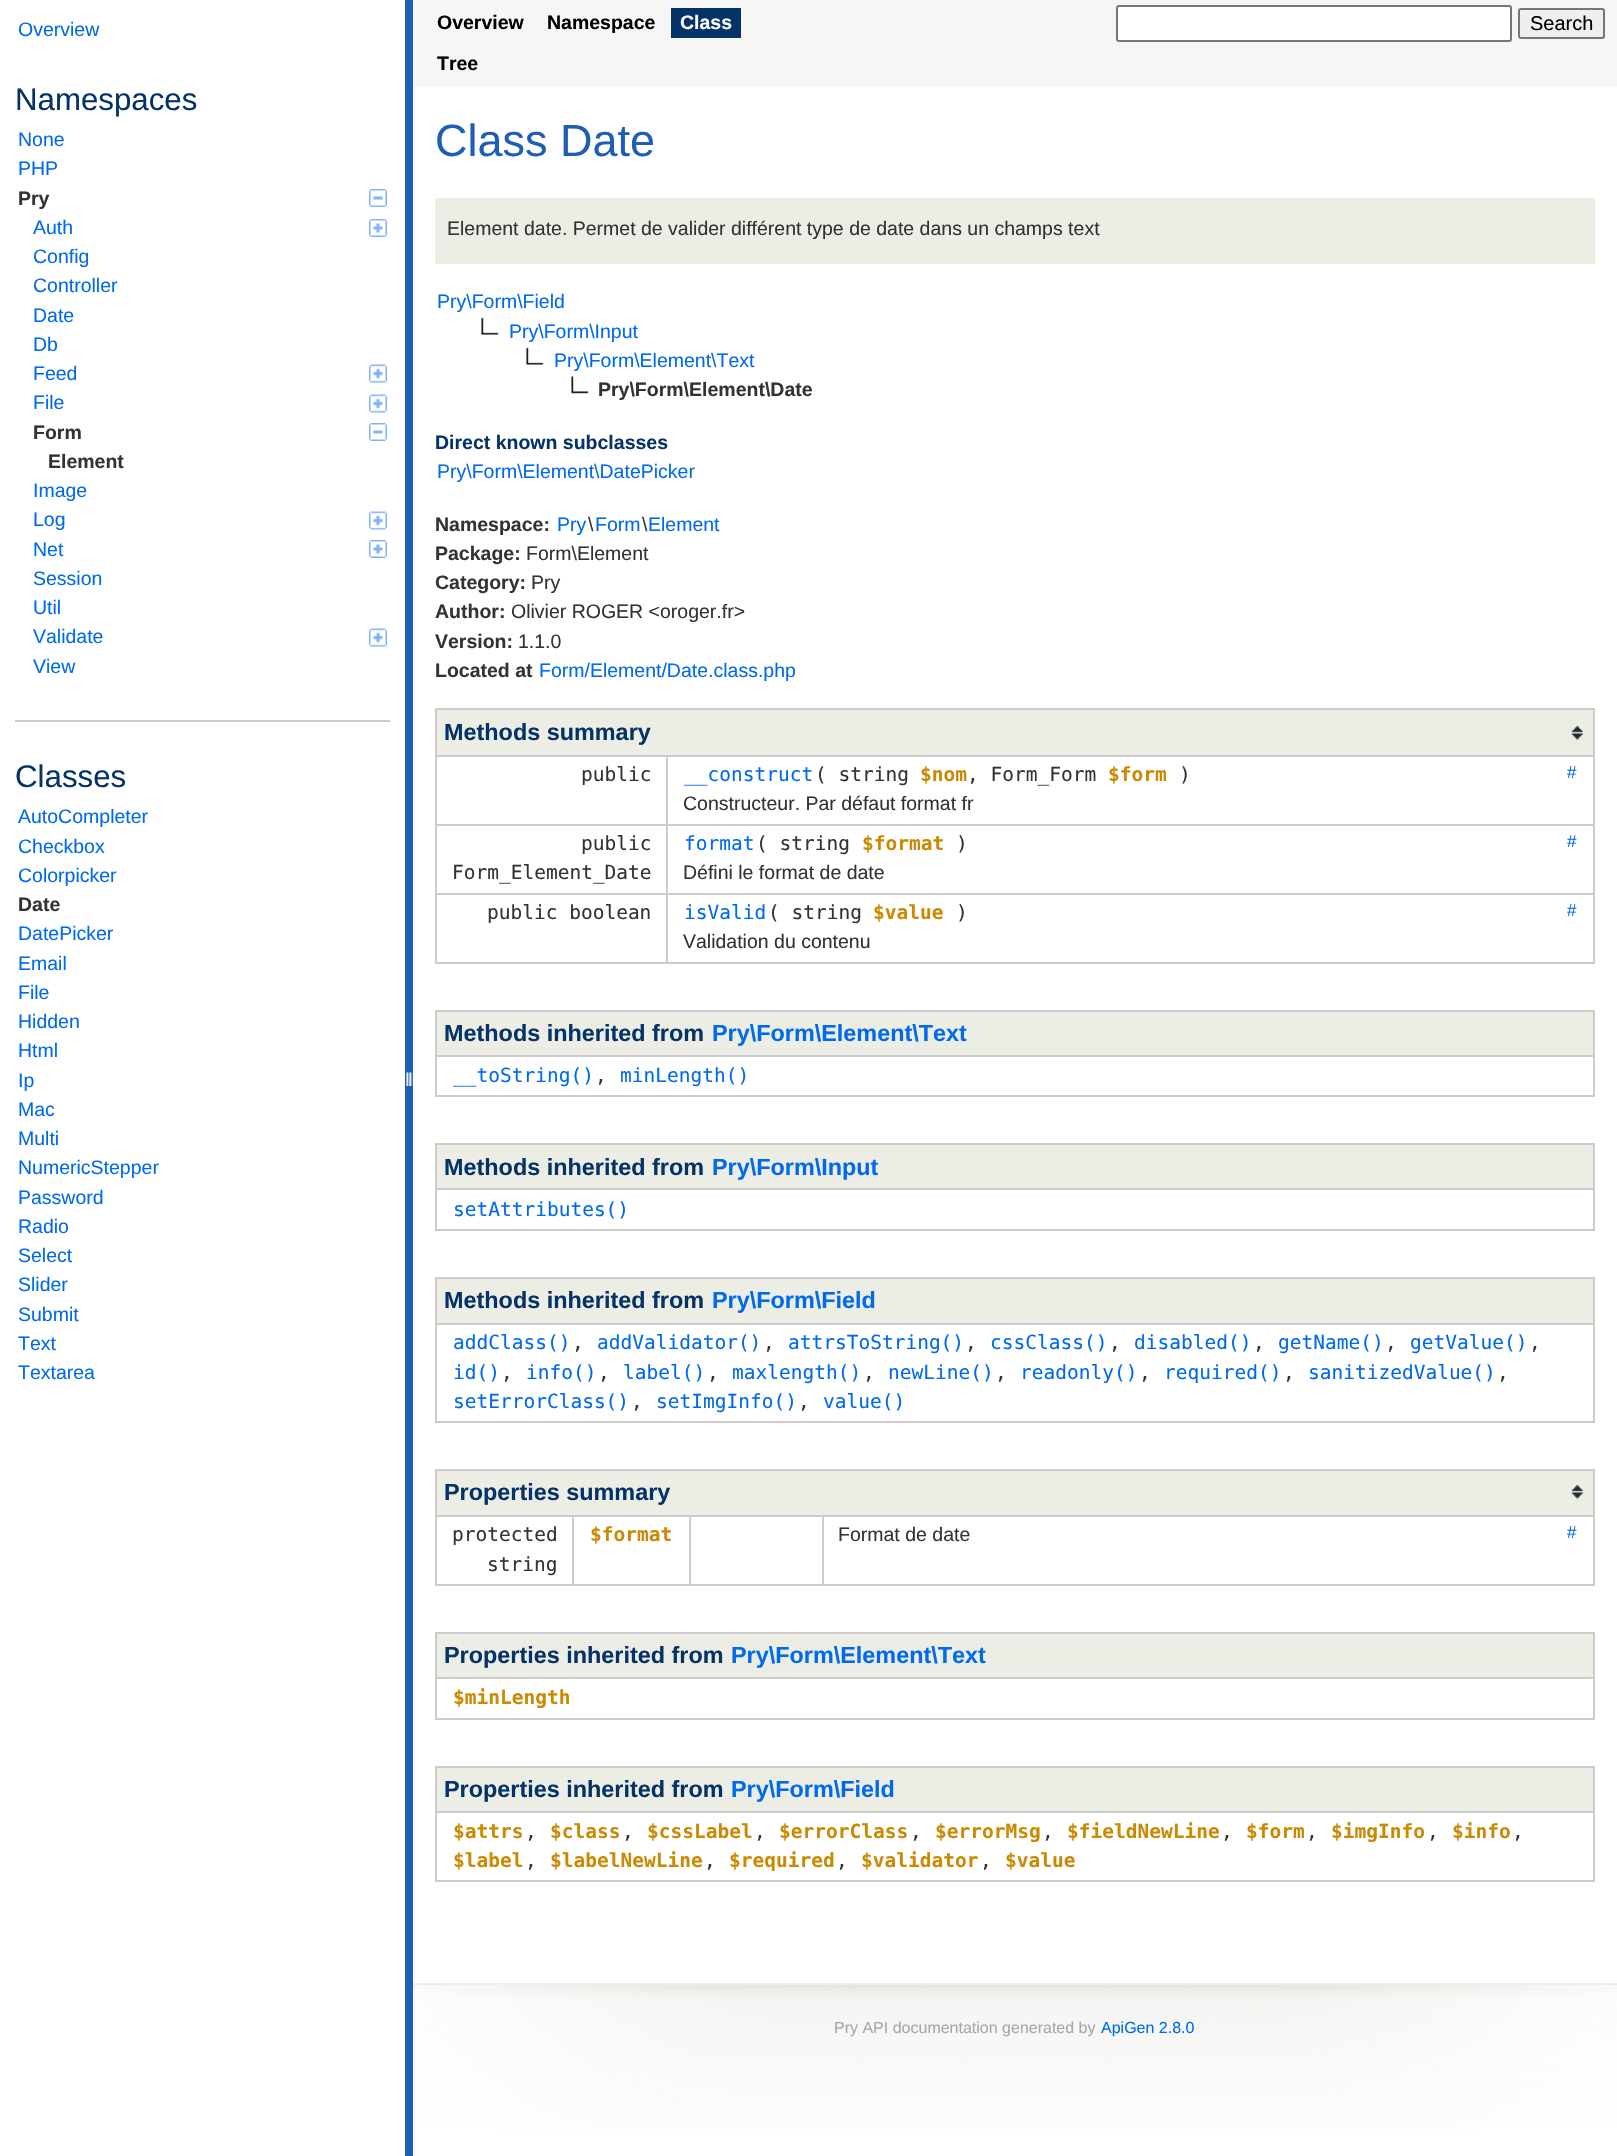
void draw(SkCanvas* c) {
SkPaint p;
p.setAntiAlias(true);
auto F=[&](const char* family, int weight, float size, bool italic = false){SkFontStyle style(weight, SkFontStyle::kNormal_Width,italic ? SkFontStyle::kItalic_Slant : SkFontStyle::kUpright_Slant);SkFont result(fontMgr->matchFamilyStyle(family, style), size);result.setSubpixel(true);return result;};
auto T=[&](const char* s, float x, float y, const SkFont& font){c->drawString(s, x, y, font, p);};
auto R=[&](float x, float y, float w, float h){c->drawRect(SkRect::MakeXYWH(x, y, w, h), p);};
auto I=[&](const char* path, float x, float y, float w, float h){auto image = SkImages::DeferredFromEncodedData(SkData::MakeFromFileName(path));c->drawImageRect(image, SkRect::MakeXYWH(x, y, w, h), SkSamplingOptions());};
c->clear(0xffffffff);
auto f1 = F("Liberation Sans",400,19.5);
p.setColor(0xff006aeb);
T("Overview",18,36,f1);
auto f2 = F("Liberation Sans",400,31.25);
p.setColor(0xff053368);
T("Namespaces",15,110,f2);
p.setColor(0xff006aeb);
T("None",18,146,f1);
T("PHP",18,175,f1);
auto f3 = F("Liberation Sans",700,19.5);
p.setColor(0xff333333);
T("Pry",18,205,f3);
I("1.png",369,189,18,18);
p.setColor(0xff006aeb);
T("Auth",33,234,f1);
I("2.png",369,219,18,18);
T("Config",33,263,f1);
T("Controller",33,292,f1);
T("Date",33,322,f1);
T("Db",33,351,f1);
T("Feed",33,380,f1);
I("3.png",369,364,18,19);
T("File",33,409,f1);
I("3.png",369,394,18,19);
p.setColor(0xff333333);
T("Form",33,439,f3);
I("1.png",369,423,18,18);
T("Element",48,468,f3);
p.setColor(0xff006aeb);
T("Image",33,497,f1);
T("Log",33,526,f1);
I("3.png",369,511,18,19);
T("Net",33,556,f1);
I("2.png",369,540,18,18);
T("Session",33,585,f1);
T("Util",33,614,f1);
T("Validate",33,643,f1);
I("3.png",369,628,18,19);
T("View",33,673,f1);
p.setColor(0xffcccccc);
R(15,720,375,2);
p.setColor(0xff053368);
T("Classes",15,787,f2);
p.setColor(0xff006aeb);
T("AutoCompleter",18,823,f1);
T("Checkbox",18,853,f1);
T("Colorpicker",18,882,f1);
p.setColor(0xff333333);
T("Date",18,911,f3);
p.setColor(0xff006aeb);
T("DatePicker",18,940,f1);
T("Email",18,970,f1);
T("File",18,999,f1);
T("Hidden",18,1028,f1);
T("Html",18,1057,f1);
T("Ip",18,1087,f1);
T("Mac",18,1116,f1);
T("Multi",18,1145,f1);
T("NumericStepper",18,1174,f1);
T("Password",18,1204,f1);
T("Radio",18,1233,f1);
T("Select",18,1262,f1);
T("Slider",18,1291,f1);
T("Submit",18,1321,f1);
T("Text",18,1350,f1);
T("Textarea",18,1379,f1);
p.setColor(0xff1e5eb6);
R(405,0,8,2156);
I("4.png",406,1072,7,14);
p.setColor(0xfff6f6f4);
R(413,0,1204,87);
p.setColor(0xff000000);
T("Overview",437,29,f3);
T("Namespace",547,29,f3);
p.setColor(0xff053368);
R(671,8,70,30);
p.setColor(0xffffffff);
T("Class",680,29,f3);
p.setColor(0xff000000);
T("Tree",437,70,f3);
p.setColor(0xffffffff);
c->drawRoundRect(SkRect::MakeXYWH(1117,6,394,35),2,2,p);
p.setStroke(true);
p.setStrokeWidth(2);
p.setColor(0xff767676);
c->drawRoundRect(SkRect::MakeXYWH(1117,6,394,35),2,2,p);
p.setStroke(false);
p.setColor(0xffefefef);
c->drawRoundRect(SkRect::MakeXYWH(1519,9,85,29),2,2,p);
p.setStroke(true);
p.setColor(0xff767676);
c->drawRoundRect(SkRect::MakeXYWH(1519,9,85,29),2,2,p);
auto f4 = F("Liberation Sans",400,20);
p.setStroke(false);
p.setColor(0xff000000);
T("Search",1530,30,f4);
auto f5 = F("Liberation Sans",400,45);
p.setColor(0xff1e5eb6);
T("Class Date",435,156,f5);
p.setColor(0xffecede5);
R(435,198,1160,66);
p.setColor(0xff333333);
T("Element date. Permet de valider différent type de date dans un champs text",447,235,f1);
p.setColor(0xff006aeb);
T("Pry\\Form\\Field",437,308,f1);
I("5.png",481,317,18,18);
T("Pry\\Form\\Input",509,338,f1);
I("5.png",526,347,18,18);
T("Pry\\Form\\Element\\Text",554,367,f1);
I("6.png",571,376,18,18);
p.setColor(0xff333333);
T("Pry\\Form\\Element\\Date",598,396,f3);
p.setColor(0xff053368);
T("Direct known subclasses",435,449,f3);
p.setColor(0xff006aeb);
T("Pry\\Form\\Element\\DatePicker",437,478,f1);
p.setColor(0xff333333);
T("Namespace:",435,531,f3);
p.setColor(0xff006aeb);
T("Pry",557,531,f1);
p.setColor(0xff333333);
T("\\",588,531,f1);
p.setColor(0xff006aeb);
T("Form",595,531,f1);
p.setColor(0xff333333);
T("\\",642,531,f1);
p.setColor(0xff006aeb);
T("Element",648,531,f1);
p.setColor(0xff333333);
T("Package:",435,560,f3);
T("Form\\Element",526,560,f1);
T("Category:",435,589,f3);
T("Pry",531,589,f1);
T("Author:",435,618,f3);
T("Olivier ROGER <oroger.fr>",511,618,f1);
T("Version:",435,648,f3);
T("1.1.0",518,648,f1);
T("Located at",435,677,f3);
p.setColor(0xff006aeb);
T("Form/Element/Date.class.php",539,677,f1);
p.setColor(0xffcccccc);
R(435,708,1160,2);
R(1593,708,2,255);
R(435,962,1160,2);
R(435,708,2,255);
p.setColor(0xffecede5);
R(437,710,1156,45);
I("7.png",1571,726,12,14);
auto f6 = F("Liberation Sans",700,23.4);
p.setColor(0xff053368);
T("Methods summary",444,740,f6);
p.setColor(0xffcccccc);
R(666,755,929,2);
R(666,824,929,2);
R(666,893,929,2);
R(666,893,2,70);
R(435,893,233,2);
R(666,824,2,70);
R(435,824,233,2);
R(666,755,2,70);
R(435,755,233,2);
auto f7 = F("DejaVu Sans Mono",400,19.5);
p.setColor(0xff333333);
T("public",581,781,f7);
p.setColor(0xff006aeb);
T("__construct",684,781,f7);
p.setColor(0xff333333);
T("( string",815,781,f7);
auto f8 = F("DejaVu Sans Mono",700,19.5);
p.setColor(0xffca8a04);
T("$nom",920,781,f8);
p.setColor(0xff333333);
T(", Form_Form",967,781,f7);
p.setColor(0xffca8a04);
T("$form",1108,781,f8);
p.setColor(0xff333333);
T(")",1179,781,f7);
auto f9 = F("Liberation Sans",400,17);
p.setColor(0xff006aeb);
T("#",1567,778,f9);
p.setColor(0xff333333);
T("Constructeur. Par défaut format fr",683,810,f1);
T("public",581,850,f7);
T("Form_Element_Date",452,879,f7);
p.setColor(0xff006aeb);
T("format",684,850,f7);
p.setColor(0xff333333);
T("( string",756,850,f7);
p.setColor(0xffca8a04);
T("$format",862,850,f8);
p.setColor(0xff333333);
T(")",956,850,f7);
p.setColor(0xff006aeb);
T("#",1567,847,f9);
p.setColor(0xff333333);
T("Défini le format de date",683,879,f1);
T("public boolean",487,919,f7);
p.setColor(0xff006aeb);
T("isValid",684,919,f7);
p.setColor(0xff333333);
T("( string",768,919,f7);
p.setColor(0xffca8a04);
T("$value",873,919,f8);
p.setColor(0xff333333);
T(")",956,919,f7);
p.setColor(0xff006aeb);
T("#",1567,916,f9);
p.setColor(0xff333333);
T("Validation du contenu",683,948,f1);
p.setColor(0xffcccccc);
R(435,1010,1160,2);
R(1593,1010,2,87);
R(435,1095,1160,2);
R(435,1010,2,87);
p.setColor(0xffecede5);
R(437,1012,1156,43);
p.setColor(0xff053368);
T("Methods inherited from",444,1041,f6);
p.setColor(0xff006aeb);
T("Pry\\Form\\Element\\Text",712,1041,f6);
p.setColor(0xffcccccc);
R(435,1055,1160,2);
p.setColor(0xff006aeb);
T("__toString()",453,1082,f7);
p.setColor(0xff333333);
T(",",595,1082,f7);
p.setColor(0xff006aeb);
T("minLength()",620,1082,f7);
p.setColor(0xffcccccc);
R(435,1143,1160,2);
R(1593,1143,2,87);
R(435,1229,1160,2);
R(435,1143,2,87);
p.setColor(0xffecede5);
R(437,1145,1156,43);
p.setColor(0xff053368);
T("Methods inherited from",444,1175,f6);
p.setColor(0xff006aeb);
T("Pry\\Form\\Input",712,1175,f6);
p.setColor(0xffcccccc);
R(435,1188,1160,2);
p.setColor(0xff006aeb);
T("setAttributes()",453,1216,f7);
p.setColor(0xffcccccc);
R(435,1277,1160,2);
R(1593,1277,2,145);
R(435,1421,1160,2);
R(435,1277,2,145);
p.setColor(0xffecede5);
R(437,1279,1156,44);
p.setColor(0xff053368);
T("Methods inherited from",444,1308,f6);
p.setColor(0xff006aeb);
T("Pry\\Form\\Field",712,1308,f6);
p.setColor(0xffcccccc);
R(435,1323,1160,2);
p.setColor(0xff006aeb);
T("addClass()",453,1349,f7);
p.setColor(0xff333333);
T(",",572,1349,f7);
p.setColor(0xff006aeb);
T("addValidator()",597,1349,f7);
p.setColor(0xff333333);
T(",",763,1349,f7);
p.setColor(0xff006aeb);
T("attrsToString()",788,1349,f7);
p.setColor(0xff333333);
T(",",965,1349,f7);
p.setColor(0xff006aeb);
T("cssClass()",990,1349,f7);
p.setColor(0xff333333);
T(",",1109,1349,f7);
p.setColor(0xff006aeb);
T("disabled()",1134,1349,f7);
p.setColor(0xff333333);
T(",",1253,1349,f7);
p.setColor(0xff006aeb);
T("getName()",1278,1349,f7);
p.setColor(0xff333333);
T(",",1385,1349,f7);
p.setColor(0xff006aeb);
T("getValue()",1410,1349,f7);
p.setColor(0xff333333);
T(",",1529,1349,f7);
p.setColor(0xff006aeb);
T("id()",453,1379,f7);
p.setColor(0xff333333);
T(",",501,1379,f7);
p.setColor(0xff006aeb);
T("info()",526,1379,f7);
p.setColor(0xff333333);
T(",",598,1379,f7);
p.setColor(0xff006aeb);
T("label()",623,1379,f7);
p.setColor(0xff333333);
T(",",707,1379,f7);
p.setColor(0xff006aeb);
T("maxlength()",732,1379,f7);
p.setColor(0xff333333);
T(",",863,1379,f7);
p.setColor(0xff006aeb);
T("newLine()",888,1379,f7);
p.setColor(0xff333333);
T(",",995,1379,f7);
p.setColor(0xff006aeb);
T("readonly()",1020,1379,f7);
p.setColor(0xff333333);
T(",",1139,1379,f7);
p.setColor(0xff006aeb);
T("required()",1164,1379,f7);
p.setColor(0xff333333);
T(",",1283,1379,f7);
p.setColor(0xff006aeb);
T("sanitizedValue()",1308,1379,f7);
p.setColor(0xff333333);
T(",",1497,1379,f7);
p.setColor(0xff006aeb);
T("setErrorClass()",453,1408,f7);
p.setColor(0xff333333);
T(",",631,1408,f7);
p.setColor(0xff006aeb);
T("setImgInfo()",656,1408,f7);
p.setColor(0xff333333);
T(",",798,1408,f7);
p.setColor(0xff006aeb);
T("value()",823,1408,f7);
p.setColor(0xffcccccc);
R(435,1469,1160,2);
R(1593,1469,2,117);
R(435,1584,1160,2);
R(435,1469,2,117);
p.setColor(0xffecede5);
R(437,1471,1156,44);
I("7.png",1571,1485,12,14);
p.setColor(0xff053368);
T("Properties summary",444,1500,f6);
p.setColor(0xffcccccc);
R(822,1515,773,2);
R(822,1515,2,71);
R(689,1515,135,2);
R(689,1515,2,71);
R(572,1515,118,2);
R(572,1515,2,71);
R(435,1515,138,2);
p.setColor(0xff333333);
T("protected",452,1541,f7);
T("string",487,1571,f7);
p.setColor(0xffca8a04);
T("$format",590,1541,f8);
p.setColor(0xff333333);
T("Format de date",838,1541,f1);
p.setColor(0xff006aeb);
T("#",1567,1538,f9);
p.setColor(0xffcccccc);
R(435,1632,1160,2);
R(1593,1632,2,87);
R(435,1718,1160,2);
R(435,1632,2,87);
p.setColor(0xffecede5);
R(437,1634,1156,43);
p.setColor(0xff053368);
T("Properties inherited from",444,1663,f6);
p.setColor(0xff006aeb);
T("Pry\\Form\\Element\\Text",731,1663,f6);
p.setColor(0xffcccccc);
R(435,1677,1160,2);
p.setColor(0xffca8a04);
T("$minLength",453,1704,f8);
p.setColor(0xffcccccc);
R(435,1766,1160,2);
R(1593,1766,2,115);
R(435,1880,1160,2);
R(435,1766,2,115);
p.setColor(0xffecede5);
R(437,1768,1156,43);
p.setColor(0xff053368);
T("Properties inherited from",444,1797,f6);
p.setColor(0xff006aeb);
T("Pry\\Form\\Field",731,1797,f6);
p.setColor(0xffcccccc);
R(435,1811,1160,2);
p.setColor(0xffca8a04);
T("$attrs",453,1838,f8);
p.setColor(0xff333333);
T(",",525,1838,f7);
p.setColor(0xffca8a04);
T("$class",550,1838,f8);
p.setColor(0xff333333);
T(",",622,1838,f7);
p.setColor(0xffca8a04);
T("$cssLabel",647,1838,f8);
p.setColor(0xff333333);
T(",",754,1838,f7);
p.setColor(0xffca8a04);
T("$errorClass",779,1838,f8);
p.setColor(0xff333333);
T(",",910,1838,f7);
p.setColor(0xffca8a04);
T("$errorMsg",935,1838,f8);
p.setColor(0xff333333);
T(",",1042,1838,f7);
p.setColor(0xffca8a04);
T("$fieldNewLine",1067,1838,f8);
p.setColor(0xff333333);
T(",",1221,1838,f7);
p.setColor(0xffca8a04);
T("$form",1246,1838,f8);
p.setColor(0xff333333);
T(",",1306,1838,f7);
p.setColor(0xffca8a04);
T("$imgInfo",1331,1838,f8);
p.setColor(0xff333333);
T(",",1427,1838,f7);
p.setColor(0xffca8a04);
T("$info",1452,1838,f8);
p.setColor(0xff333333);
T(",",1512,1838,f7);
p.setColor(0xffca8a04);
T("$label",453,1867,f8);
p.setColor(0xff333333);
T(",",525,1867,f7);
p.setColor(0xffca8a04);
T("$labelNewLine",550,1867,f8);
p.setColor(0xff333333);
T(",",704,1867,f7);
p.setColor(0xffca8a04);
T("$required",729,1867,f8);
p.setColor(0xff333333);
T(",",836,1867,f7);
p.setColor(0xffca8a04);
T("$validator",861,1867,f8);
p.setColor(0xff333333);
T(",",980,1867,f7);
p.setColor(0xffca8a04);
T("$value",1005,1867,f8);
I("8.png",413,1985,1204,144);
p.setColor(0xffe9eeef);
R(413,1983,1204,2);
auto f10 = F("Liberation Sans",400,16);
p.setColor(0xffa7a7a7);
T("Pry API documentation generated by",834,2033,f10);
p.setColor(0xff006aeb);
T("ApiGen 2.8.0",1101,2033,f10);
}
